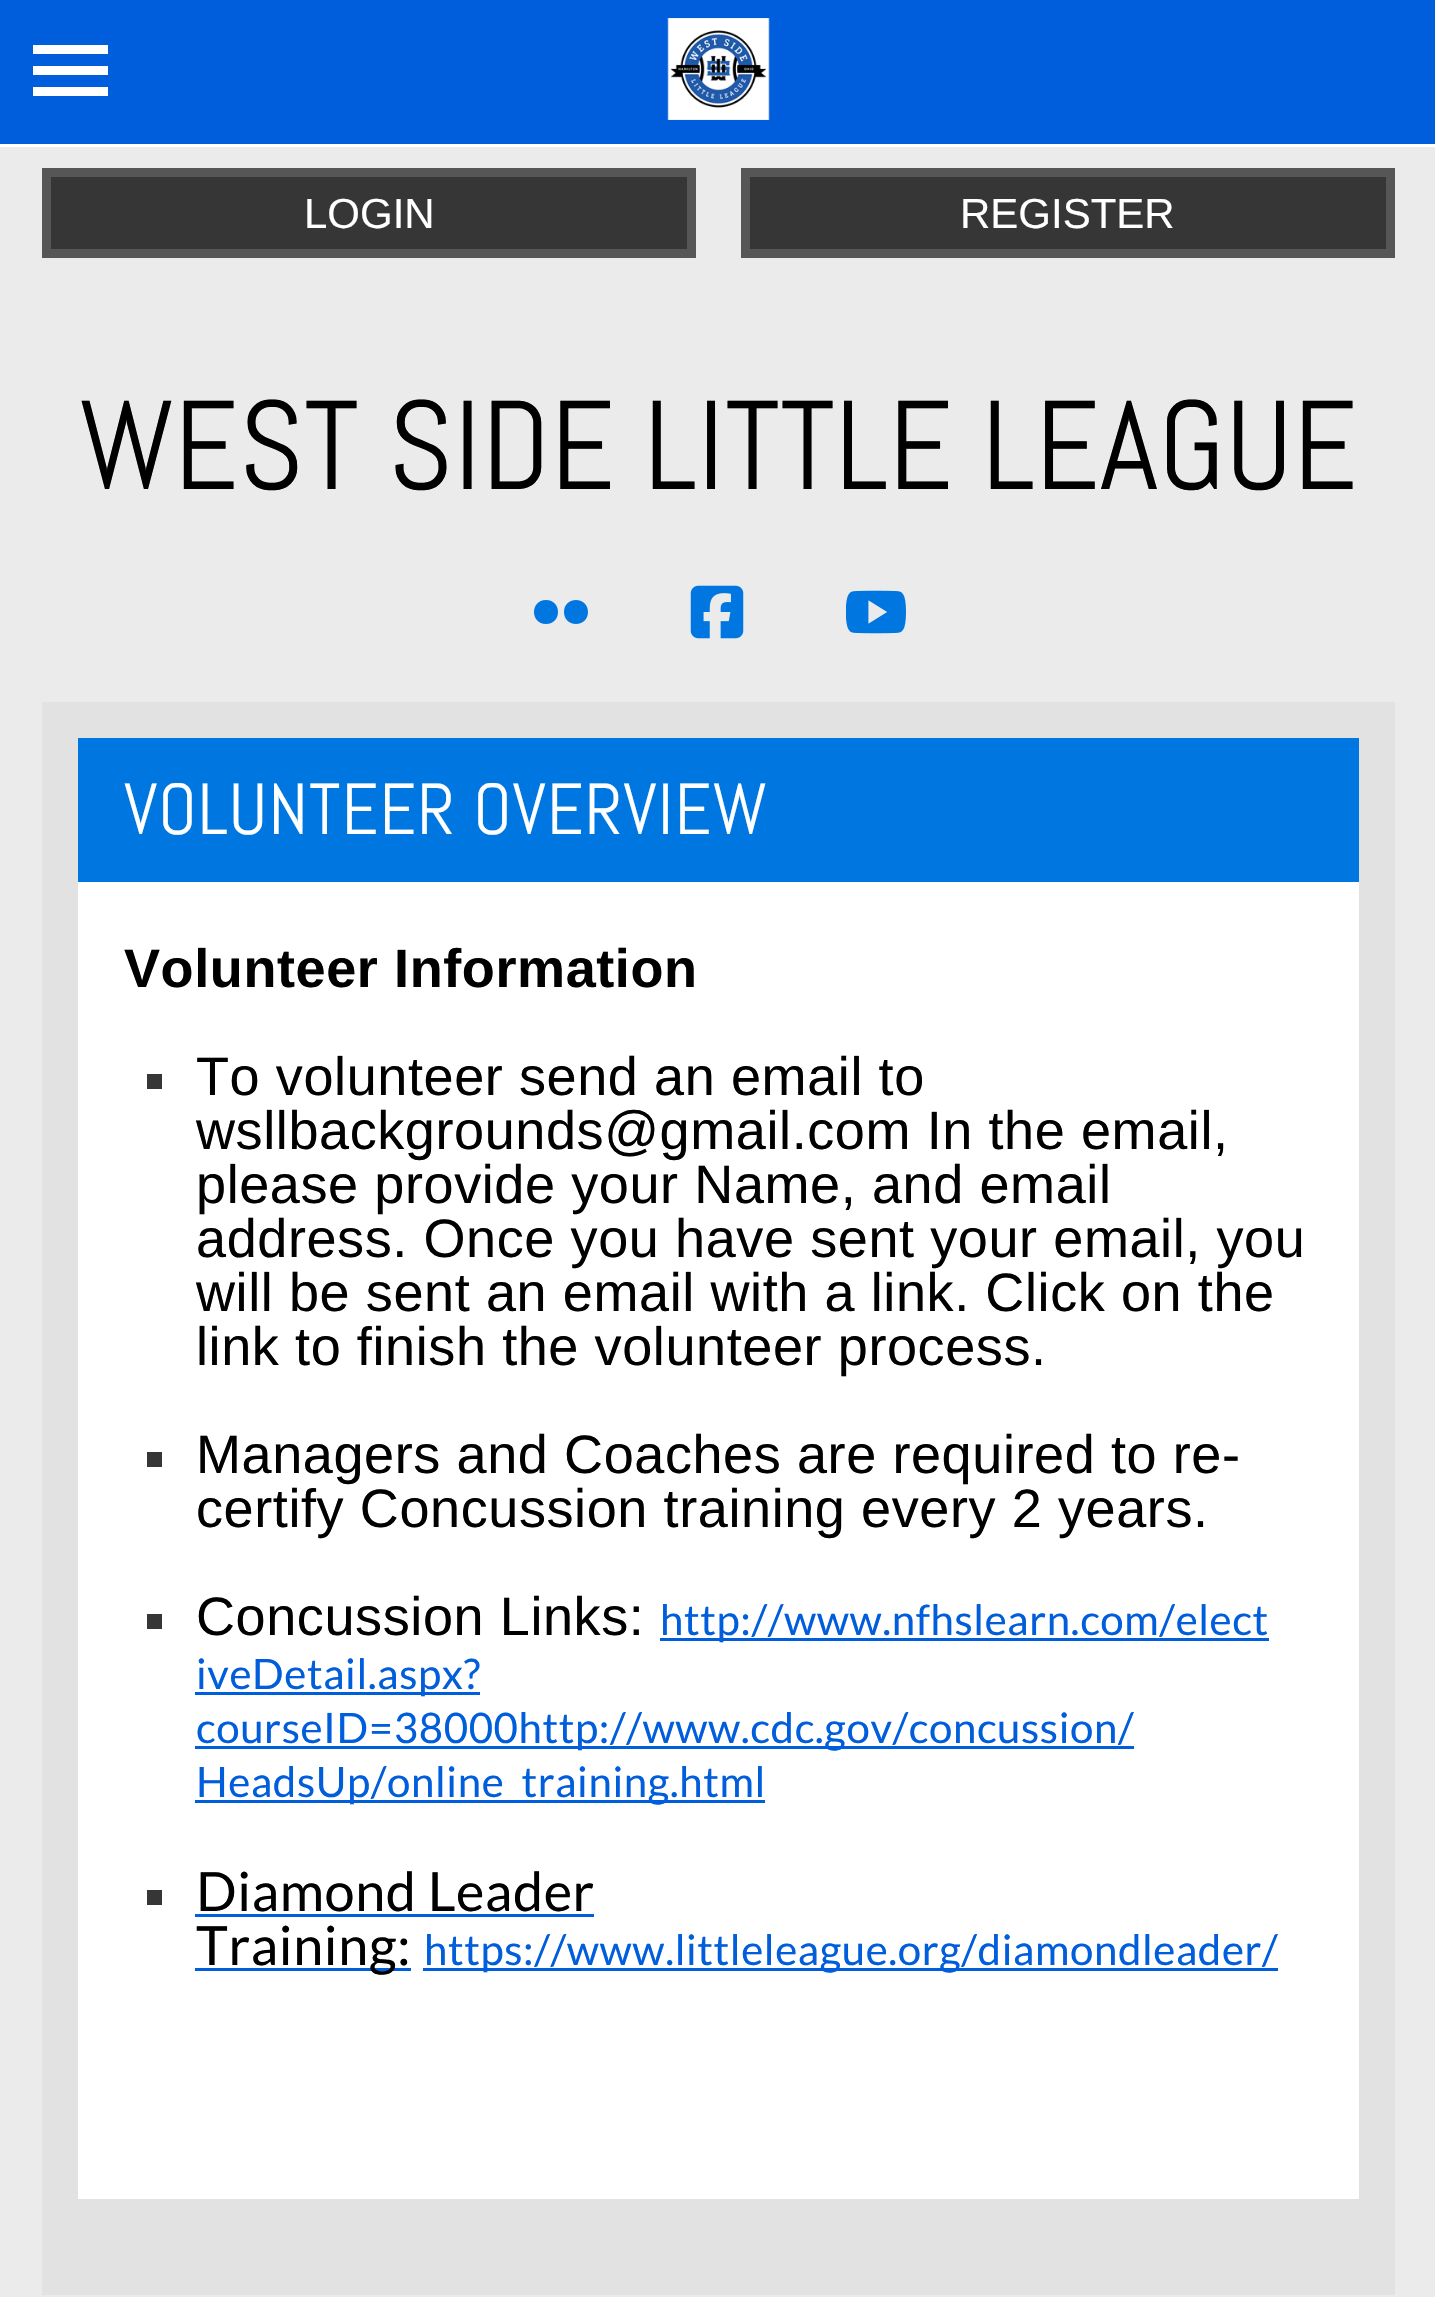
void draw(SkCanvas* c) {
SkPaint p;
p.setAntiAlias(true);
auto F=[&](const char* family, int weight, float size, bool italic = false){SkFontStyle style(weight, SkFontStyle::kNormal_Width,italic ? SkFontStyle::kItalic_Slant : SkFontStyle::kUpright_Slant);SkFont result(fontMgr->matchFamilyStyle(family, style), size);result.setSubpixel(true);return result;};
auto T=[&](const char* s, float x, float y, const SkFont& font){c->drawString(s, x, y, font, p);};
auto L=[&](const char* s, float x, float y, const SkFont& font, const SkPaint& ink, float letter, float word){std::vector<SkGlyphID> glyphs(font.countText(s, strlen(s), SkTextEncoding::kUTF8));std::vector<float> xs(glyphs.size());font.textToGlyphs(s, strlen(s), SkTextEncoding::kUTF8, glyphs);font.getXPos(glyphs, xs, x);float extra = 0;for (size_t i = 0; i < glyphs.size(); i++) {xs[i] += extra;extra += letter + word * (glyphs[i] == font.unicharToGlyph(' '));}c->drawTextBlob(SkTextBlob::MakeFromPosHGlyphs(glyphs, xs, y, font), 0, 0, ink);};
auto R=[&](float x, float y, float w, float h){c->drawRect(SkRect::MakeXYWH(x, y, w, h), p);};
auto I=[&](const char* path, float x, float y, float w, float h){auto image = SkImages::DeferredFromEncodedData(SkData::MakeFromFileName(path));c->drawImageRect(image, SkRect::MakeXYWH(x, y, w, h), SkSamplingOptions());};
auto P=[&](const char* data, bool evenOdd = false){SkPath result = *SkParsePath::FromSVGString(data);if (evenOdd) result.setFillType(SkPathFillType::kEvenOdd);return result;};
c->clear(0xffebebeb);
p.setColor(0xff005ddb);
R(0,0,1435,144);
p.setColor(0xffffffff);
R(0,144,1435,3);
c->drawPath(P("M33 45h75v9h-75zm0 21h75v9h-75zm0 21h75v9h-75z"),p);
I("1.png",667,18,103,102);
p.setColor(0xff363636);
c->drawRect(SkRect::MakeXYWH(46.5,172.5,645,81),p);
p.setStroke(true);
p.setStrokeWidth(9);
p.setColor(0xff565656);
c->drawRect(SkRect::MakeXYWH(46.5,172.5,645,81),p);
auto f1 = F("Liberation Sans",400,42);
p.setStroke(false);
p.setColor(0xffffffff);
T("LOGIN",304,228,f1);
p.setColor(0xff363636);
c->drawRect(SkRect::MakeXYWH(745.5,172.5,645,81),p);
p.setStroke(true);
p.setColor(0xff565656);
c->drawRect(SkRect::MakeXYWH(745.5,172.5,645,81),p);
p.setStroke(false);
p.setColor(0xffffffff);
T("REGISTER",960,228,f1);
auto f2 = F("Abel",400,126);
p.setColor(0xff000000);
T("WEST SIDE LITTLE LEAGUE",79,489,f2);
p.setColor(0xff0076e0);
c->drawPath(P("M588 612c0 16-24 16-24 0c0-16 24-16 24 0zm-42-12c-16 0-16 24 0 24c16 0 16-24 0-24z"),p);
I("2.png",690,585,54,54);
I("3.png",846,590,60,44);
p.setColor(0xffe2e2e2);
R(42,702,1353,1593);
p.setColor(0xff0076e0);
R(78,738,1281,144);
auto f3 = F("Abel",400,72);
p.setColor(0xffffffff);
L("VOLUNTEER OVERVIEW",124,834,f3,p,.9,0);
R(78,882,1281,1317);
auto f4 = F("Liberation Sans",700,54);
p.setColor(0xff000000);
L("Volunteer Information",124,987,f4,p,.6,0);
p.setColor(0xff363636);
R(147,1074,15,15);
auto f5 = F("Liberation Sans",400,54);
p.setColor(0xff000000);
L("To volunteer send an email to",196,1095,f5,p,.6,0);
L("wsllbackgrounds@gmail.com In the email,",196,1149,f5,p,.6,0);
L("please provide your Name, and email",196,1203,f5,p,.6,0);
L("address. Once you have sent your email, you",196,1257,f5,p,.6,0);
L("will be sent an email with a link. Click on the",196,1311,f5,p,.6,0);
L("link to finish the volunteer process.",196,1365,f5,p,.6,0);
p.setColor(0xff363636);
R(147,1452,15,15);
p.setColor(0xff000000);
L("Managers and Coaches are required to re-",196,1473,f5,p,.6,0);
L("certify Concussion training every 2 years.",196,1527,f5,p,.6,0);
p.setColor(0xff363636);
R(147,1614,15,15);
p.setColor(0xff000000);
L("Concussion Links:",196,1635,f5,p,.6,0);
p.setColor(0xff005ddb);
R(660,1638,609,3);
auto f6 = F("Lato",400,42);
L("http://www.nfhslearn.com/elect",660,1635,f6,p,.6,0);
R(195,1692,285,3);
L("iveDetail.aspx?",196,1689,f6,p,.6,0);
R(195,1746,939,3);
L("courseID=38000http://www.cdc.gov/concussion/",196,1743,f6,p,.6,0);
R(195,1800,570,3);
L("HeadsUp/online_training.html",196,1797,f6,p,.6,0);
p.setColor(0xff363636);
R(147,1890,15,15);
auto f7 = F("Lato",400,54);
p.setColor(0xff000000);
L("Diamond Leader",196,1911,f7,p,.6,0);
p.setColor(0xff005ddb);
R(195,1914,399,3);
R(195,1968,216,3);
p.setColor(0xff000000);
L("Training:",196,1965,f7,p,.6,0);
p.setColor(0xff005ddb);
R(423,1968,855,3);
L("https://www.littleleague.org/diamondleader/",424,1965,f6,p,.6,0);
}
